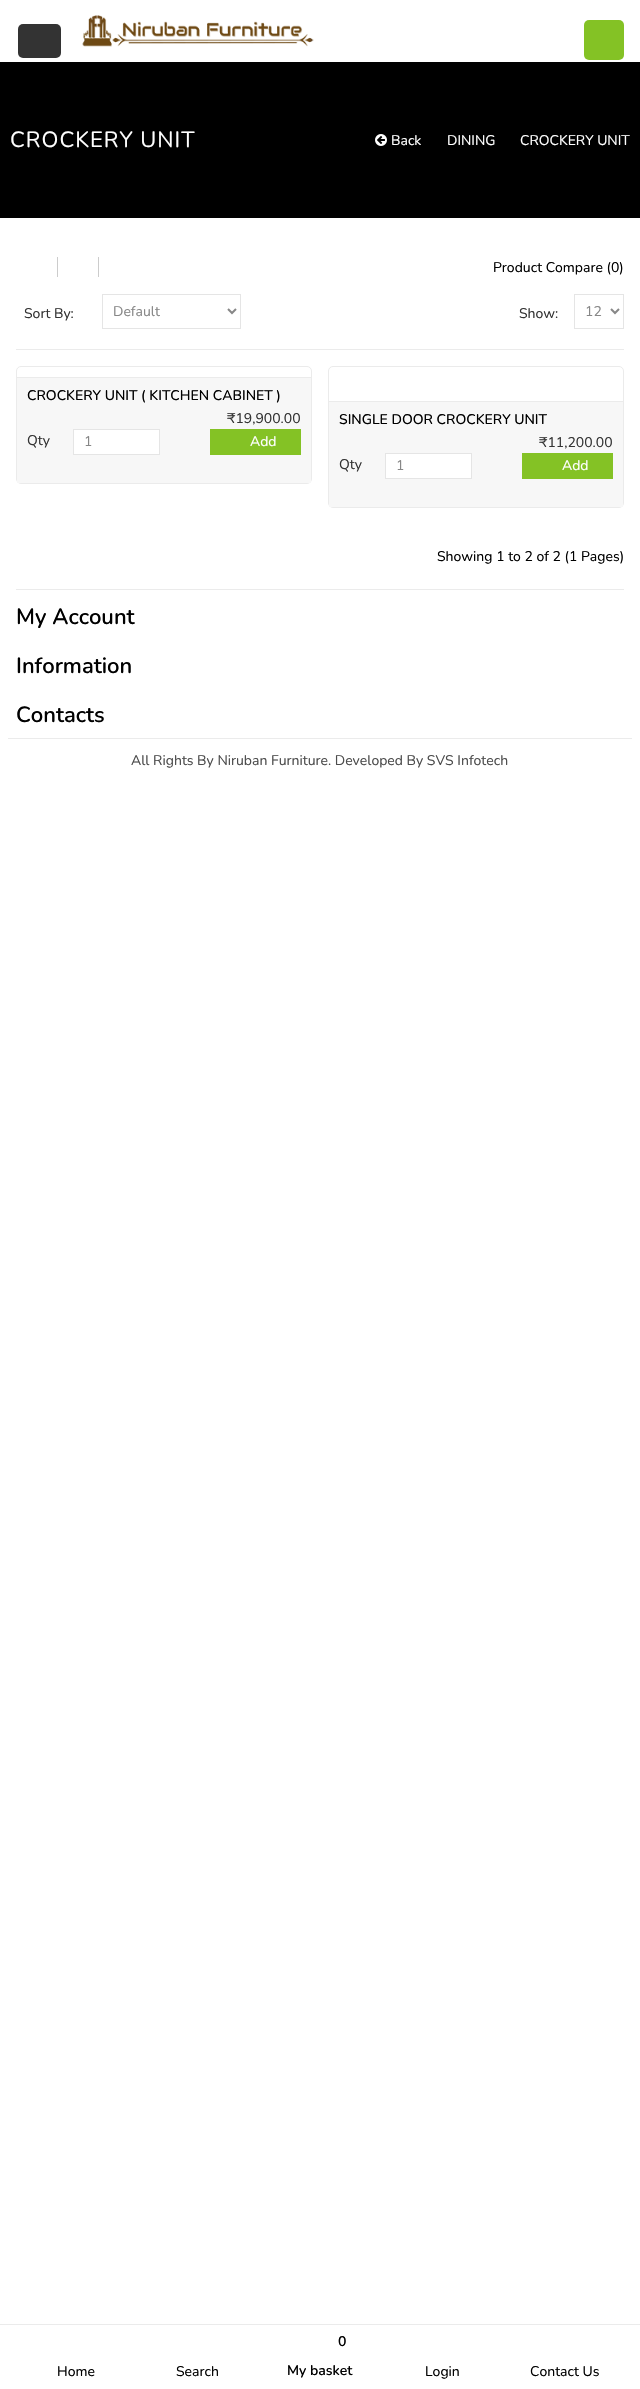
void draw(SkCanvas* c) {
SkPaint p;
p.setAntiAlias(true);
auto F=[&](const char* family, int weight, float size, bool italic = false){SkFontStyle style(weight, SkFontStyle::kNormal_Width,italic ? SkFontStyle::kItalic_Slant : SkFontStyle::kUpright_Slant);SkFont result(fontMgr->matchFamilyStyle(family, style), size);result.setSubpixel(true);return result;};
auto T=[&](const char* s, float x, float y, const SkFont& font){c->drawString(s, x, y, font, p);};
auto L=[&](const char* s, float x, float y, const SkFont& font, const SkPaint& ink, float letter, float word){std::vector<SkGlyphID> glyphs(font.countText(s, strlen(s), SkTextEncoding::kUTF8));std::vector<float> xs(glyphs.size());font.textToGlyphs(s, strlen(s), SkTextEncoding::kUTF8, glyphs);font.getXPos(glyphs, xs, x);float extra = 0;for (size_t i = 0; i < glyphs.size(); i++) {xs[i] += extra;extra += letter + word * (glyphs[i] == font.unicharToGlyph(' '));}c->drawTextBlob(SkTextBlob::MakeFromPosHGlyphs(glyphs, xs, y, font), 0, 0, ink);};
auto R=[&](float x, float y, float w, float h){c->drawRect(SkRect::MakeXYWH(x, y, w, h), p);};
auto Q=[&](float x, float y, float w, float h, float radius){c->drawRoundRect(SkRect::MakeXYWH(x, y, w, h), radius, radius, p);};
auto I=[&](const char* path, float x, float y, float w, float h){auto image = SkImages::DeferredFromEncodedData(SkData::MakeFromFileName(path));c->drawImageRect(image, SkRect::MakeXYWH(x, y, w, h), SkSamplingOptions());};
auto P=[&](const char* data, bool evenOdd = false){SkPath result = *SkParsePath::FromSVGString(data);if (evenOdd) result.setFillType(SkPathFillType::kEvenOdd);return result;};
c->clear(0xffffffff);
p.setColor(0xff333333);
Q(18,24,43,34,5);
p.setColor(0xff000000);
R(0,62,640,156);
auto f1 = F("Nunito",400,22);
p.setColor(0xffffffff);
L("CROCKERY UNIT",10,147,f1,p,1,0);
I("1.png",375,134,12,12);
auto f2 = F("Nunito",400,14);
T("Back",391,145,f2);
T("DINING",447,145,f2);
T("CROCKERY UNIT",520,145,f2);
p.setColor(0xffebebeb);
R(16,349,608,1);
p.setColor(0xffcccccc);
R(57,257,1,20);
R(98,257,1,20);
p.setColor(0xff000000);
T("Product Compare (0)",493,272,f2);
p.setColor(0xff333333);
T("Sort By:",24,318,f2);
p.setStroke(true);
p.setStrokeWidth(1);
p.setColor(0xffe5e5e5);
c->drawRect(SkRect::MakeXYWH(102.5,294.5,138,34),p);
p.setStrokeWidth(2);
p.setColor(0xff878787);
c->drawPath(P("M228 309l4 4l4-4"),p);
p.setStroke(false);
T("Default",113,316,f2);
p.setColor(0xff333333);
T("Show:",519,318,f2);
p.setStroke(true);
p.setStrokeWidth(1);
p.setColor(0xffe5e5e5);
c->drawRect(SkRect::MakeXYWH(574.5,294.5,49,34),p);
p.setStrokeWidth(2);
p.setColor(0xff878787);
c->drawPath(P("M611 309l4 4l4-4"),p);
p.setStroke(false);
T("12",585,316,f2);
p.setStroke(true);
p.setStrokeWidth(1);
p.setColor(0xffebebeb);
c->drawRoundRect(SkRect::MakeXYWH(16.5,366.5,295,117),4.5,4.5,p);
p.setStroke(false);
p.setColor(0xfff7f7f7);
R(17,378,294,105);
p.setColor(0xffebebeb);
R(17,377,294,1);
auto f3 = F("Nunito",500,14);
p.setColor(0xff000000);
T("CROCKERY UNIT ( KITCHEN CABINET )",27,400,f3);
p.setColor(0xff333333);
T("₹19,900.00",227,423,f2);
T("Qty",27,445,f2);
p.setColor(0xffffffff);
c->drawRect(SkRect::MakeXYWH(73.5,429.5,86,25),p);
p.setStroke(true);
p.setColor(0xffe5e5e5);
c->drawRect(SkRect::MakeXYWH(73.5,429.5,86,25),p);
p.setStroke(false);
p.setColor(0xff878787);
T("1",84,446,f2);
p.setColor(0xff84c225);
R(210,429,91,26);
p.setColor(0xffffffff);
T("Add",250,446,f2);
p.setStroke(true);
p.setColor(0xffebebeb);
c->drawRoundRect(SkRect::MakeXYWH(328.5,366.5,295,141),4.5,4.5,p);
p.setStroke(false);
p.setColor(0xfff7f7f7);
R(329,402,294,105);
p.setColor(0xffebebeb);
R(329,401,294,1);
p.setColor(0xff000000);
T("SINGLE DOOR CROCKERY UNIT",339,424,f3);
p.setColor(0xff333333);
T("₹11,200.00",539,447,f2);
T("Qty",339,469,f2);
p.setColor(0xffffffff);
c->drawRect(SkRect::MakeXYWH(385.5,453.5,86,25),p);
p.setStroke(true);
p.setColor(0xffe5e5e5);
c->drawRect(SkRect::MakeXYWH(385.5,453.5,86,25),p);
p.setStroke(false);
p.setColor(0xff878787);
T("1",396,470,f2);
p.setColor(0xff84c225);
R(522,453,91,26);
p.setColor(0xffffffff);
T("Add",562,470,f2);
p.setColor(0xff000000);
T("Showing 1 to 2 of 2 (1 Pages)",437,561,f2);
p.setColor(0xffebebeb);
R(16,589,608,1);
auto f4 = F("Nunito",600,22);
p.setColor(0xff000000);
T("My Account",16,624,f4);
T("Information",16,673,f4);
T("Contacts",16,722,f4);
p.setColor(0xffebebeb);
R(8,738,624,1);
p.setColor(0xff4c4c4c);
T("All Rights By Niruban Furniture. Developed By SVS Infotech",131,765,f2);
I("2.png",82,15,232,32);
p.setColor(0xff84c225);
Q(584,20,40,40,5);
p.setColor(0xffebebeb);
R(0,2324,640,1);
p.setColor(0xff000000);
T("Home",57,2376,f2);
T("Search",176,2376,f2);
auto f5 = F("Nunito",600,14);
T("0",338,2346,f5);
T("My basket",287,2375,f5);
T("Login",425,2376,f2);
T("Contact Us",530,2376,f2);
}
